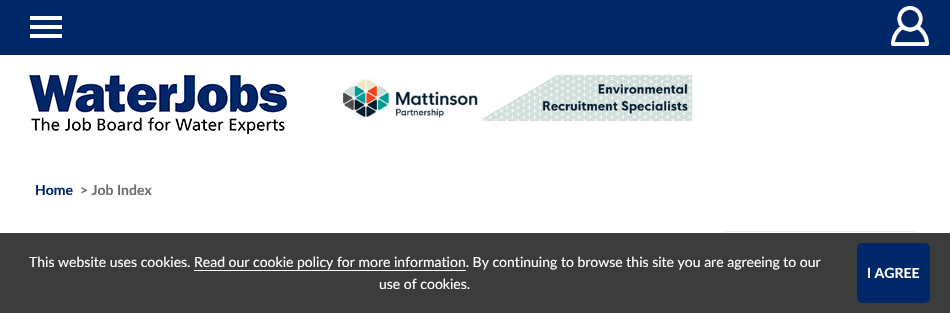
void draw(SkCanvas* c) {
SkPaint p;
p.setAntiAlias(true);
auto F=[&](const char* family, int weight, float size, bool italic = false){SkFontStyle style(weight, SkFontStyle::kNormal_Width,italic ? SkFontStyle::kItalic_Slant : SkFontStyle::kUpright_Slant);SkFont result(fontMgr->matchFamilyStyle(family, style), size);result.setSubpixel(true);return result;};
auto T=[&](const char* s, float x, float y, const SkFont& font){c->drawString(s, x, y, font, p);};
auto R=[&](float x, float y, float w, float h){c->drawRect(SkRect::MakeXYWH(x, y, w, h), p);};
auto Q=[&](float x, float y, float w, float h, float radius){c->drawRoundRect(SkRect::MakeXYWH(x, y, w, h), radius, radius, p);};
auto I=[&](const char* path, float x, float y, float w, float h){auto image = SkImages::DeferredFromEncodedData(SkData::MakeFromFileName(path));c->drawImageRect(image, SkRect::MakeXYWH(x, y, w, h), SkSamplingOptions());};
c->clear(0xffffffff);
p.setColor(0xff002868);
R(0,0,950,55);
p.setColor(0xffffffff);
R(30,16,32,4);
R(30,25,32,4);
R(30,34,32,4);
I("1.png",891,6,38,40);
I("2.png",29,75,258,59);
I("3.png",342,75,350,46);
auto f1 = F("Lato",700,14);
p.setColor(0xff002868);
T("Home",35,195,f1);
p.setColor(0xff6e6e6e);
T("> Job Index",80,195,f1);
p.setStroke(true);
p.setStrokeWidth(1);
p.setColor(0xffececec);
c->drawRect(SkRect::MakeXYWH(725.5,231.5,189,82),p);
p.setStroke(false);
p.setColor(0xff3c3c3c);
R(0,233,950,80);
auto f2 = F("Lato",400,14);
p.setColor(0xffffffff);
T("This website uses cookies. Read our cookie policy for more information. By continuing to browse this site you are agreeing to our",29,267,f2);
R(194,270,272,1);
p.setColor(0xff002868);
Q(857,243,73,60,5);
p.setColor(0xffffffff);
T("I AGREE",867,278,f1);
T("use of cookies.",379,289,f2);
}
